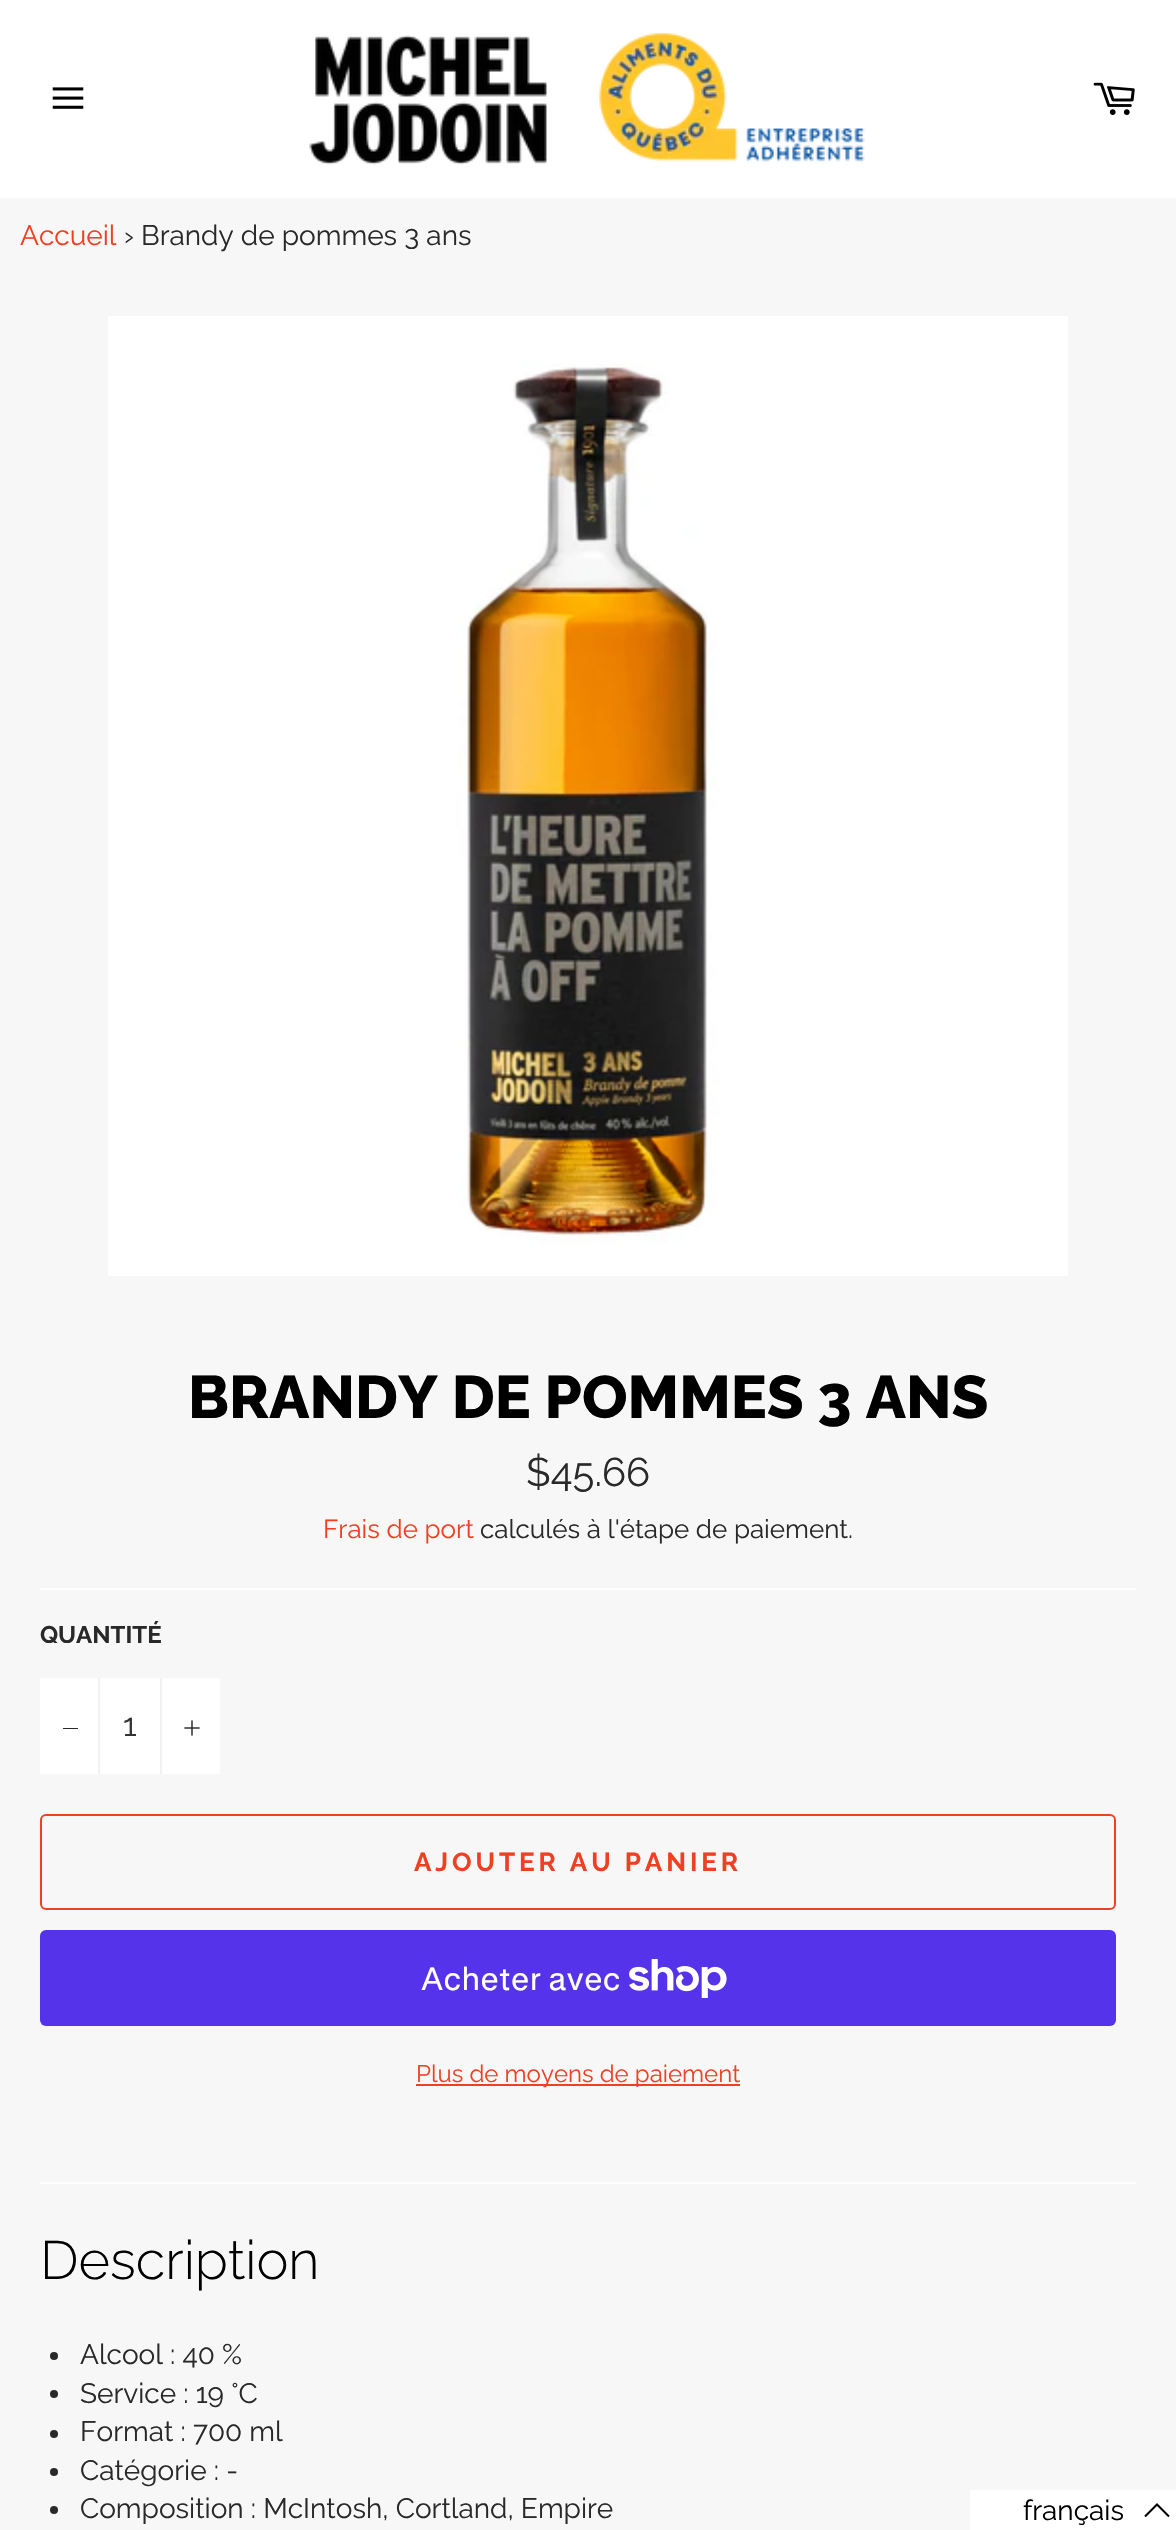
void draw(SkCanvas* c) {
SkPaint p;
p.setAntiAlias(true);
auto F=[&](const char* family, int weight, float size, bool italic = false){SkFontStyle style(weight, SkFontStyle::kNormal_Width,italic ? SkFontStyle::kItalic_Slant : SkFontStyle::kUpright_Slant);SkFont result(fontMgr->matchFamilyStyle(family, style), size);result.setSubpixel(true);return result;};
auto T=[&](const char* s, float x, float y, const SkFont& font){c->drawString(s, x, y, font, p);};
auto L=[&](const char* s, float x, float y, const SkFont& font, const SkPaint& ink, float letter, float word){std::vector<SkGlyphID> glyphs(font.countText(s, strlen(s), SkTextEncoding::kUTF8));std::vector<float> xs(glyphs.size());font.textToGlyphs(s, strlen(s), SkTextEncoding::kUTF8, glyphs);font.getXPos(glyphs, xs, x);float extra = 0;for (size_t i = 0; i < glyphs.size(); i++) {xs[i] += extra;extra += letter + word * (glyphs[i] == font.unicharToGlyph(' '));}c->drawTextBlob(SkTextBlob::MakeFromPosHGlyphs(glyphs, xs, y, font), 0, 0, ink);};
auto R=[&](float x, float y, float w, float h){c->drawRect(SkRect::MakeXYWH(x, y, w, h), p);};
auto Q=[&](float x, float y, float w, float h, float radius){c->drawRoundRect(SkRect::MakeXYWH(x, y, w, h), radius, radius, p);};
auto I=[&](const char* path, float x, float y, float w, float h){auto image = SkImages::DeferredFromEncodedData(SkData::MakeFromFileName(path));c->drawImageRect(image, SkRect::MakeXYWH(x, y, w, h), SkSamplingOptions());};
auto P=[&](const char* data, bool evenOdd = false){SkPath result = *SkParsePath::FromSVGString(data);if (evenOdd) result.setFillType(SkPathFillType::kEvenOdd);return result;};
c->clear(0xffffffff);
I("1.png",52,87,32,22);
I("2.png",309,32,556,133);
I("3.png",1093,82,42,33);
p.setColor(0xfff7f7f7);
R(0,198,1176,2332);
auto f1 = F("Raleway",400,28);
p.setColor(0xffef4023);
T("Accueil",20,245,f1);
p.setColor(0xff292929);
T("› Brandy de pommes 3 ans",124,245,f1);
I("4.png",108,316,960,960);
auto f2 = F("Raleway",800,60);
p.setColor(0xff000000);
T("BRANDY DE POMMES 3 ANS",188,1418,f2);
auto f3 = F("Raleway",400,40);
p.setColor(0xff292929);
T("$45.66",526,1486,f3);
auto f4 = F("Raleway",400,26);
p.setColor(0xffef4023);
T("Frais de port",323,1538,f4);
p.setColor(0xff292929);
T("calculés à l'étape de paiement.",480,1538,f4);
p.setColor(0xffffffff);
R(40,1588,1096,2);
auto f5 = F("Raleway",700,24);
p.setColor(0xff292929);
T("QUANTITÉ",40,1643,f5);
p.setColor(0xffffffff);
R(40,1678,180,96);
p.setColor(0xfff2f2f2);
R(98,1678,2,96);
p.setColor(0xff292929);
R(63,1728,15,1);
auto f6 = F("Raleway",400,32);
p.setColor(0xff333333);
T("1",123,1736,f6);
p.setColor(0xfff2f2f2);
R(160,1678,2,96);
I("5.png",184,1720,16,16);
p.setStroke(true);
p.setStrokeWidth(2);
p.setColor(0xffef4023);
c->drawRoundRect(SkRect::MakeXYWH(41,1815,1074,94),5,5,p);
auto f7 = F("Raleway",700,26);
p.setStroke(false);
L("AJOUTER AU PANIER",414,1871,f7,p,3.9,0);
p.setColor(0xff5433eb);
Q(40,1930,1076,96,6);
auto f8 = F("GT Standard",400,32);
p.setColor(0xffffffff);
T("Acheter avec",421,1990,f8);
I("6.png",629,1959,98,39);
p.setColor(0xffef4023);
R(416,2084,324,2);
auto f9 = F("Raleway",400,24);
T("Plus de moyens de paiement",416,2082,f9);
p.setColor(0xffffffff);
R(40,2182,1096,2);
auto f10 = F("Raleway",300,54);
p.setColor(0xff000000);
T("Description",40,2279,f10);
p.setColor(0xff292929);
c->drawCircle(54,2356,4,p);
T("Alcool : 40 %",80,2364,f1);
c->drawCircle(54,2394,4,p);
T("Service : 19 °C",80,2403,f1);
c->drawCircle(54,2434,4,p);
T("Format : 700 ml",80,2441,f1);
c->drawCircle(54,2472,4,p);
T("Catégorie : -",80,2480,f1);
c->drawCircle(54,2510,4,p);
T("Composition : McIntosh, Cortland, Empire",80,2518,f1);
p.setColor(0xffffffff);
R(970,2490,206,40);
p.setColor(0xff000000);
T("français",1023,2520,f1);
p.setStroke(true);
c->drawPath(P("M1169 2516.5l-12-12l-12 12"),p);
}
